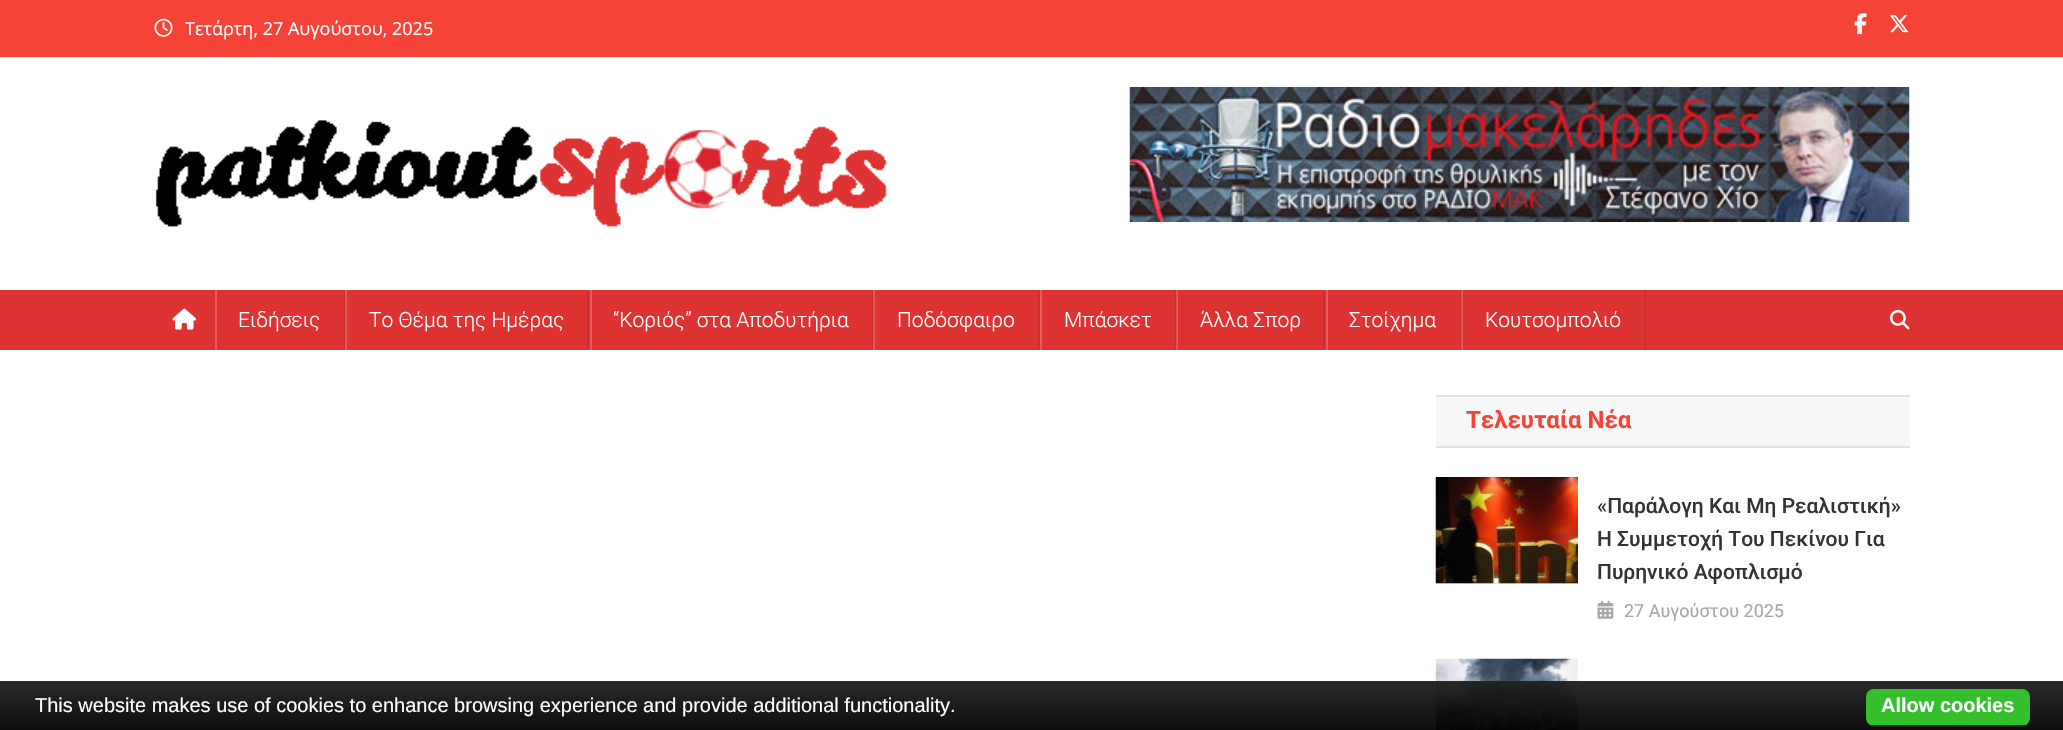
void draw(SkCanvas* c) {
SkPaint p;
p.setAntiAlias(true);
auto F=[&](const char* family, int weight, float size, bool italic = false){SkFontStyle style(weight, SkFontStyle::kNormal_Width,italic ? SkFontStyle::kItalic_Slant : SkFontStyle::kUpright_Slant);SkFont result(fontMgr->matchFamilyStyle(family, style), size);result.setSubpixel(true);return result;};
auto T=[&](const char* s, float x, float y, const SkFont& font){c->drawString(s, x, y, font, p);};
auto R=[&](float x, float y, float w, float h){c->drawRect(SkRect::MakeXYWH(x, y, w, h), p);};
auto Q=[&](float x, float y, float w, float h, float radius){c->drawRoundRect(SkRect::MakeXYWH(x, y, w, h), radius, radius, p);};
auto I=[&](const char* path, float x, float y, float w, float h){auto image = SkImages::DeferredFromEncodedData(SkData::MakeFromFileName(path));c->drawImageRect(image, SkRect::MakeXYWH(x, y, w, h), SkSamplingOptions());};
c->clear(0xffffffff);
p.setColor(0xfff54337);
R(0,0,2063,57);
I("1.png",154,18,19,19);
auto f1 = F("Open Sans",400,18);
p.setColor(0xffffffff);
T("Τετάρτη, 27 Αυγούστου, 2025",185,35,f1);
I("2.png",1854,13,13,22);
I("3.png",1889,15,20,18);
I("4.png",155,120,732,107);
I("5.png",1129,87,781,135);
p.setColor(0xffdd3333);
R(0,290,2063,60);
p.setColor(0xffe45c5c);
R(1462,290,1,60);
R(1177,290,1,60);
R(874,290,1,60);
R(346,290,1,60);
I("6.png",172,308,25,22);
p.setColor(0xffcb2f2f);
R(344,290,1,60);
p.setColor(0xffd55959);
R(345,290,1,60);
p.setColor(0xffe45c5c);
R(215,290,2,60);
auto f2 = F("Roboto",300,21);
p.setColor(0xffffffff);
T("Ειδήσεις",238,327,f2);
p.setColor(0xffcb2f2f);
R(587,290,2,60);
p.setColor(0xffffffff);
T("Το Θέμα της Ημέρας",369,327,f2);
p.setColor(0xffcb2f2f);
R(872,290,1,60);
p.setColor(0xffd55959);
R(873,290,1,60);
p.setColor(0xffe45c5c);
R(590,290,2,60);
p.setColor(0xffffffff);
T("“Κοριός” στα Αποδυτήρια",613,327,f2);
p.setColor(0xffcb2f2f);
R(1038,290,2,60);
p.setColor(0xffffffff);
T("Ποδόσφαιρο",897,327,f2);
p.setColor(0xffcb2f2f);
R(1175,290,1,60);
p.setColor(0xffd55959);
R(1176,290,1,60);
p.setColor(0xffe45c5c);
R(1040,290,2,60);
p.setColor(0xffffffff);
T("Μπάσκετ",1064,327,f2);
p.setColor(0xffcb2f2f);
R(1323,290,2,60);
p.setColor(0xffffffff);
T("Άλλα Σπορ",1200,327,f2);
p.setColor(0xffcb2f2f);
R(1460,290,1,60);
p.setColor(0xffd55959);
R(1461,290,1,60);
p.setColor(0xffe45c5c);
R(1326,290,2,60);
p.setColor(0xffffffff);
T("Στοίχημα",1349,327,f2);
p.setColor(0xffcb2f2f);
R(1644,290,2,60);
p.setColor(0xffffffff);
T("Κουτσομπολιό",1485,327,f2);
I("7.png",1890,309,20,21);
p.setColor(0xfff7f7f7);
R(1436,397,474,49);
p.setColor(0xffe1e1e1);
R(1436,395,474,2);
R(1436,446,474,2);
auto f3 = F("Roboto",700,24);
p.setColor(0xfff54337);
T("Τελευταία Νέα",1466,428,f3);
p.setColor(0xffe5e5e5);
R(1436,583,142,1);
I("8.png",1435,477,143,107);
auto f4 = F("Roboto",500,21);
p.setColor(0xff333333);
T("«Παράλογη Και Μη Ρεαλιστική»",1597,513,f4);
T("Η Συμμετοχή Του Πεκίνου Για",1597,546,f4);
T("Πυρηνικό Αφοπλισμό",1597,579,f4);
I("9.png",1597,600,17,19);
auto f5 = F("Roboto",400,18);
p.setColor(0xffa6a6a6);
T("27 Αυγούστου 2025",1624,617,f5);
I("10.png",1435,658,143,72);
{
const SkColor colors[] = {0xf21e1e1e,0xf2000000};
const float stops[] = {0,1};
const SkPoint ends[] = {{1032,681}, {1032,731}};
p.setShader(SkGradientShader::MakeLinear(ends, colors, stops, 2, SkTileMode::kClamp));
p.setAlpha(255);
}
R(0,681,2063,49);
auto f6 = F("Liberation Sans",400,20);
p.setShader(nullptr);
p.setColor(0xffffffff);
T("This website makes use of cookies to enhance browsing experience and provide additional functionality.",35,712,f6);
p.setColor(0xff36bf2d);
Q(1866,689,164,37,8);
p.setColor(0xff222222);
R(1871,725,156,2);
auto f7 = F("Liberation Sans",700,20);
p.setColor(0xffffffff);
T("Allow cookies",1881,712,f7);
}
